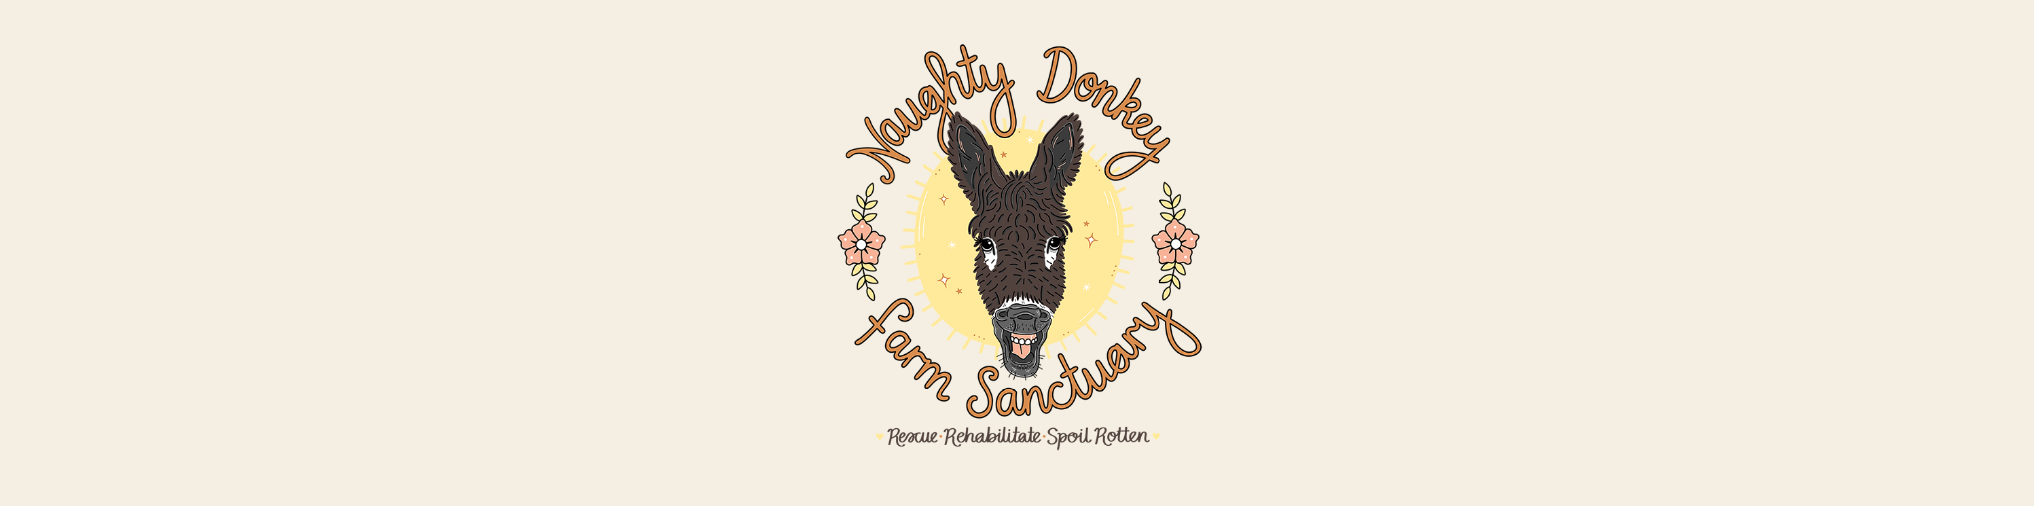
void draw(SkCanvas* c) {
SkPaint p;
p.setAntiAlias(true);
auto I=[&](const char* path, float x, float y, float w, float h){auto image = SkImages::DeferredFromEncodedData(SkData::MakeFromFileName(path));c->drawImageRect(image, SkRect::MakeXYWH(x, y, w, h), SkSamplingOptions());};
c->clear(0xfff5efe3);
I("1.png",837,44,366,407);
}
